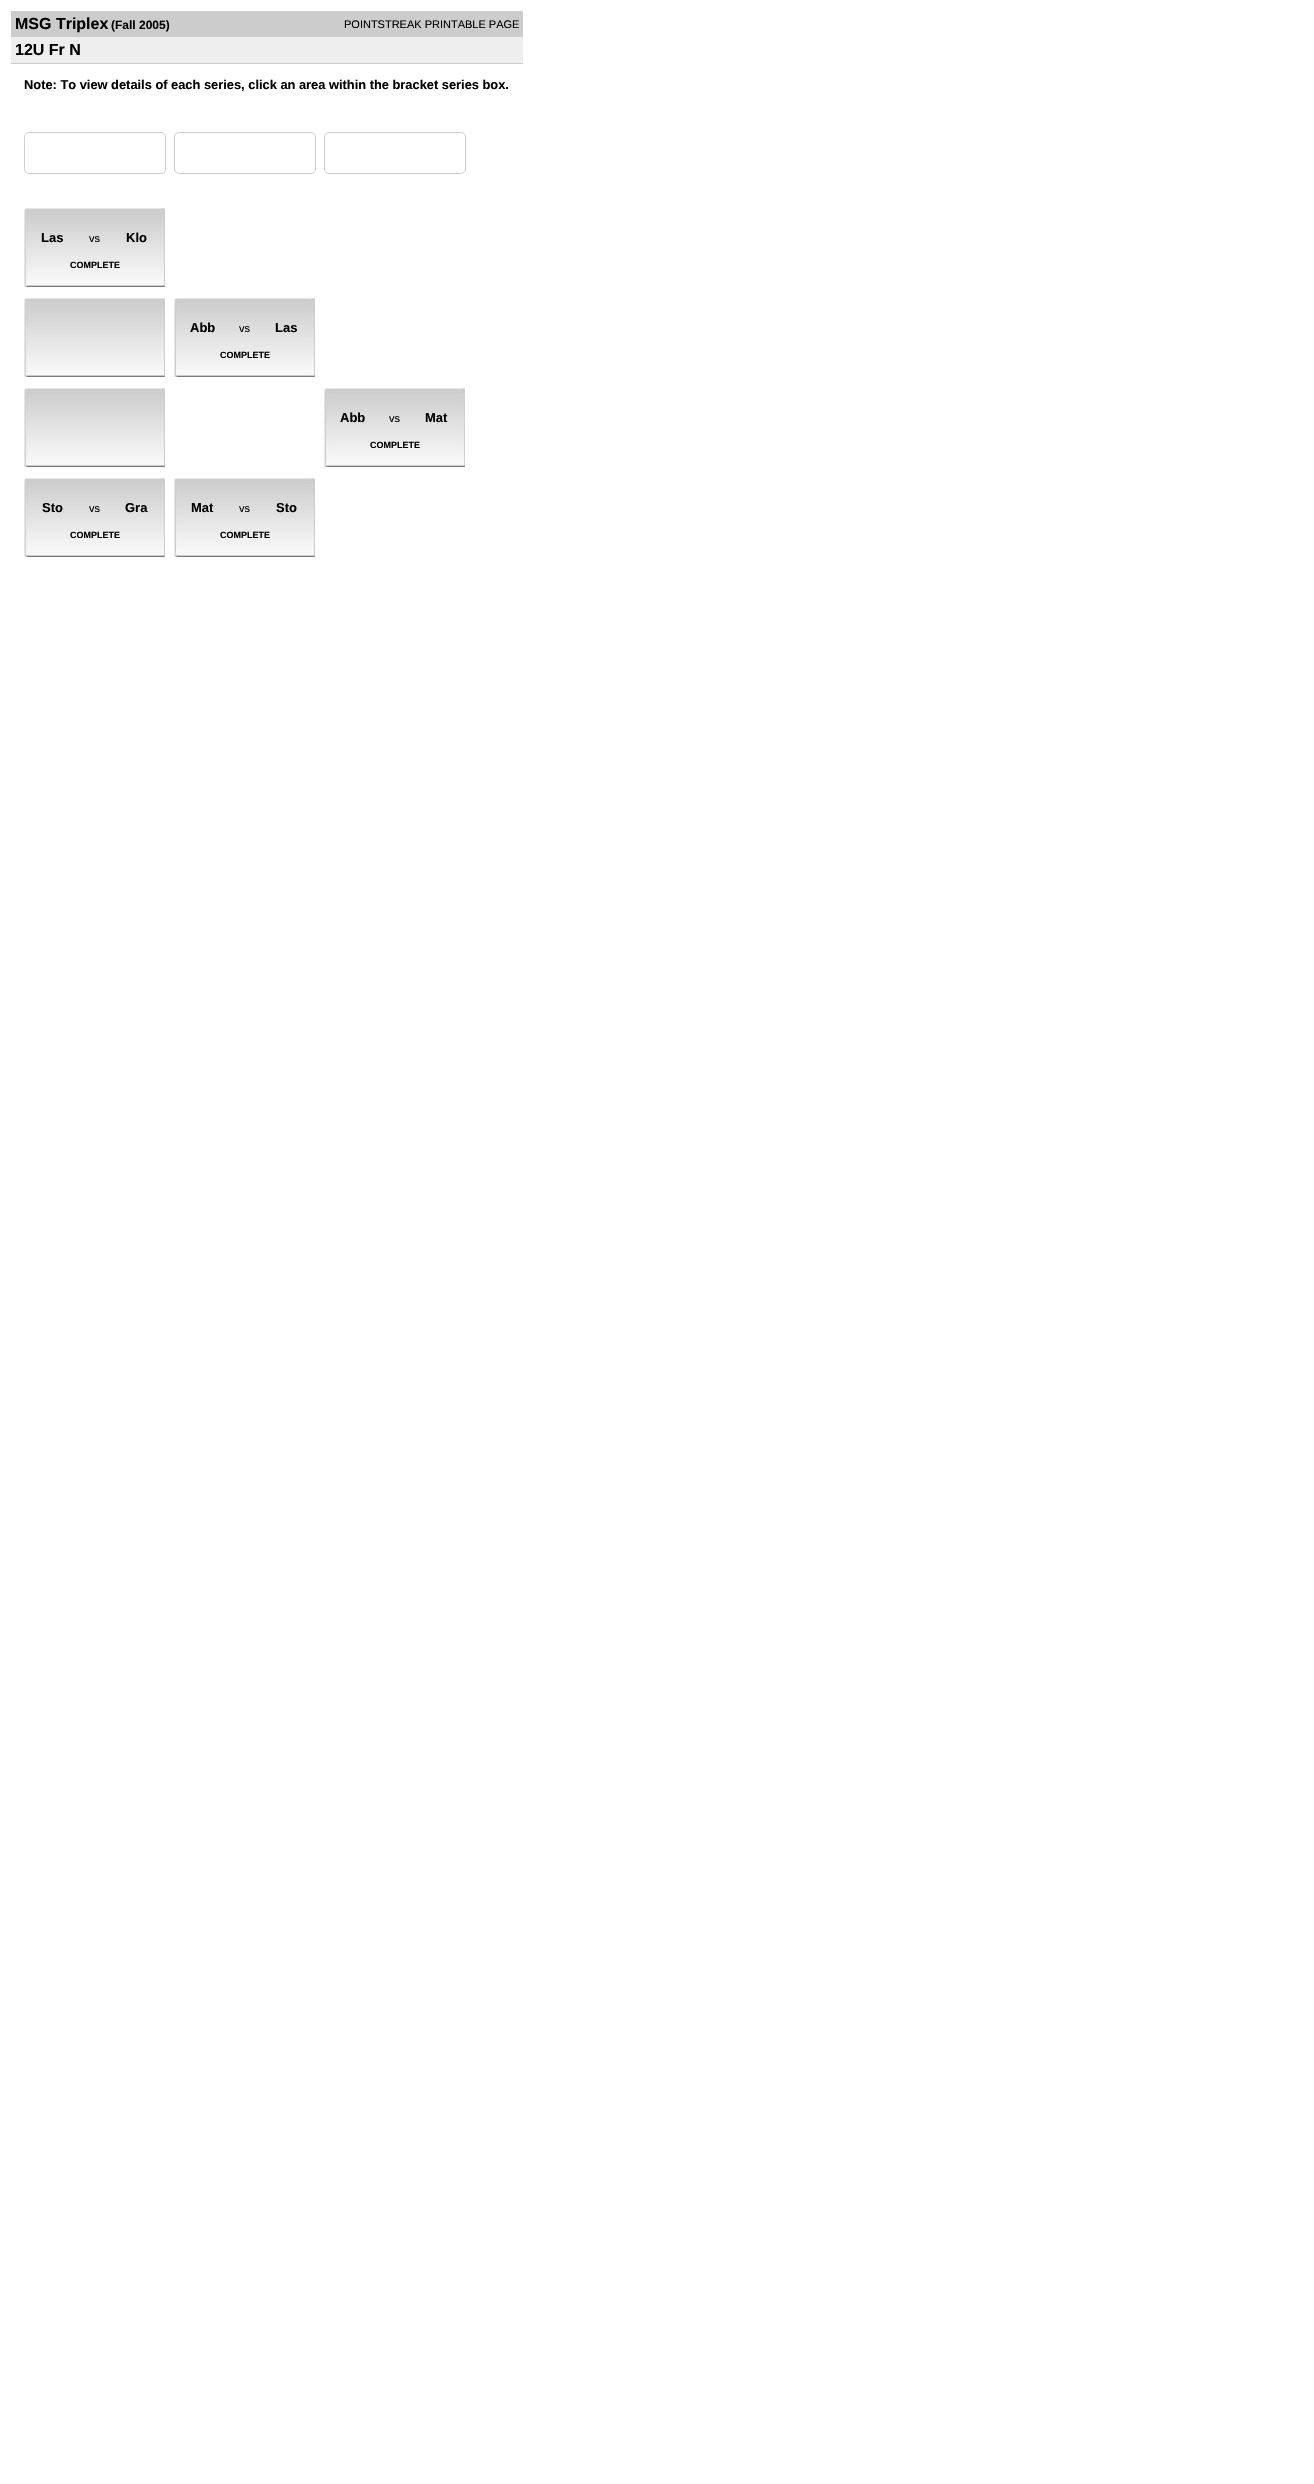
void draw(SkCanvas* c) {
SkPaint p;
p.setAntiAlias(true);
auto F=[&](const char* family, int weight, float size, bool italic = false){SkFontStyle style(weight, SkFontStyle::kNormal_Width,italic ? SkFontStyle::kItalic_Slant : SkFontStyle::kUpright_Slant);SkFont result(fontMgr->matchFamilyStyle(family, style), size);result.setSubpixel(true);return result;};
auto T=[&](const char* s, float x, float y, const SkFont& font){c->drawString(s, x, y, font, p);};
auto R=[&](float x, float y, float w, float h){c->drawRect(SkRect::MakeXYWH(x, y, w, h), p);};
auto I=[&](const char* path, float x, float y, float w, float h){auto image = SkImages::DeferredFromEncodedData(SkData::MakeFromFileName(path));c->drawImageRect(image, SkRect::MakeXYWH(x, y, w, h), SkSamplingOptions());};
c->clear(0xffffffff);
p.setColor(0xffcccccc);
R(11,11,512,26);
auto f1 = F("Liberation Sans",700,16);
p.setColor(0xff000000);
T("MSG Triplex",15,29,f1);
auto f2 = F("Liberation Sans",700,12);
T("(Fall 2005)",111,29,f2);
auto f3 = F("Liberation Sans",400,11);
T("POINTSTREAK PRINTABLE PAGE",344,28,f3);
p.setColor(0xffeeeeee);
R(11,37,512,26);
p.setColor(0xff000000);
T("12U Fr N",15,55,f1);
p.setColor(0xffcccccc);
R(11,63,512,1);
auto f4 = F("Liberation Sans",700,12.85);
p.setColor(0xff000000);
T("Note: To view details of each series, click an area within the bracket series box.",24,89,f4);
p.setStroke(true);
p.setStrokeWidth(1);
p.setColor(0xffcccccc);
c->drawRoundRect(SkRect::MakeXYWH(24.5,132.5,141,41),4.5,4.5,p);
c->drawRoundRect(SkRect::MakeXYWH(174.5,132.5,141,41),4.5,4.5,p);
c->drawRoundRect(SkRect::MakeXYWH(324.5,132.5,141,41),4.5,4.5,p);
I("1.png",24,208,141,79);
auto f5 = F("Liberation Sans",700,13);
p.setStroke(false);
p.setColor(0xff000000);
T("Las",41,242,f5);
T("vs",89,242,f3);
T("Klo",126,242,f5);
auto f6 = F("Liberation Sans",700,9);
T("COMPLETE",70,268,f6);
I("1.png",24,298,141,79);
I("1.png",174,298,141,79);
T("Abb",190,332,f5);
T("vs",239,332,f3);
T("Las",275,332,f5);
T("COMPLETE",220,358,f6);
I("1.png",24,388,141,79);
I("1.png",324,388,141,79);
T("Abb",340,422,f5);
T("vs",389,422,f3);
T("Mat",425,422,f5);
T("COMPLETE",370,448,f6);
I("1.png",24,478,141,79);
T("Sto",42,512,f5);
T("vs",89,512,f3);
T("Gra",125,512,f5);
T("COMPLETE",70,538,f6);
I("1.png",174,478,141,79);
T("Mat",191,512,f5);
T("vs",239,512,f3);
T("Sto",276,512,f5);
T("COMPLETE",220,538,f6);
}
